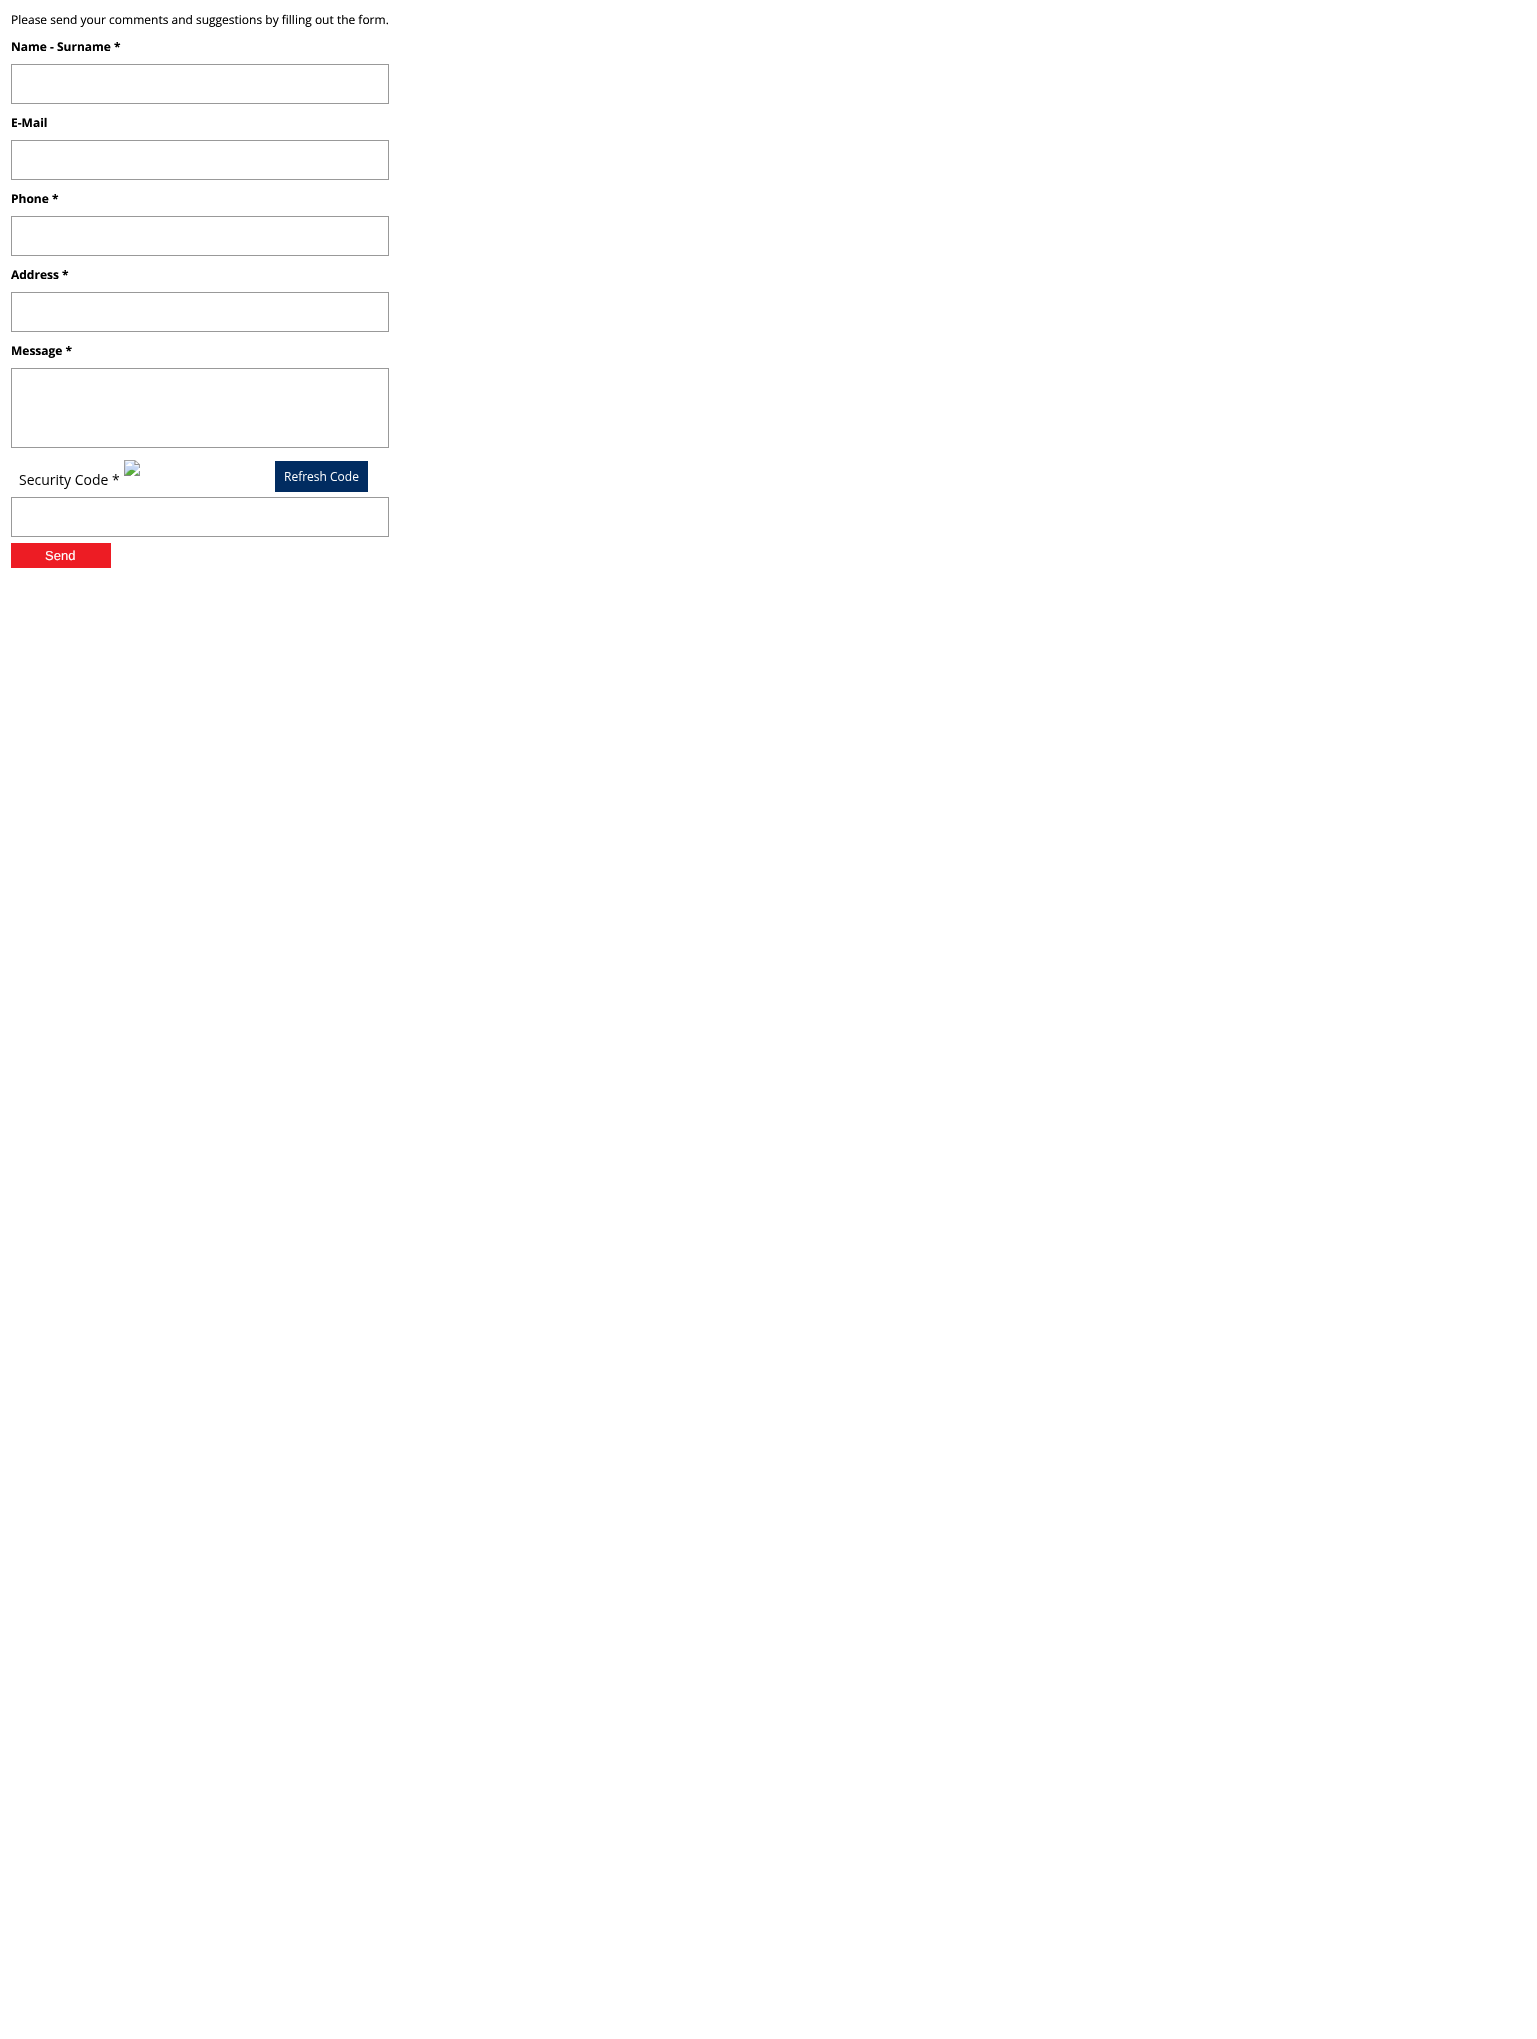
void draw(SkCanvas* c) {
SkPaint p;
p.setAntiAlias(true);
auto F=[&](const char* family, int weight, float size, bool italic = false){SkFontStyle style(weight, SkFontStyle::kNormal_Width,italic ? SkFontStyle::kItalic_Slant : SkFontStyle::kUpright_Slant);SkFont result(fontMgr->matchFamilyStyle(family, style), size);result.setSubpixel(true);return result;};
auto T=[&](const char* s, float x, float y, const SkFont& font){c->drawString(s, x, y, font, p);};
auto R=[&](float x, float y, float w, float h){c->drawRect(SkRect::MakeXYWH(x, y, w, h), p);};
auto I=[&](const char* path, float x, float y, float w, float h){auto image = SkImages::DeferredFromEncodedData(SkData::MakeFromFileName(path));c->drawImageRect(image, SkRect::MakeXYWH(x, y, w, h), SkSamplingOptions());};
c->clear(0xffffffff);
auto f1 = F("Open Sans",400,12);
p.setColor(0xff000000);
T("Please send your comments and suggestions by filling out the form.",11,24,f1);
auto f2 = F("Open Sans",700,12);
T("Name - Surname *",11,51,f2);
p.setStroke(true);
p.setStrokeWidth(1);
p.setColor(0xff999999);
c->drawRect(SkRect::MakeXYWH(11.5,64.5,377,39),p);
p.setStroke(false);
p.setColor(0xff000000);
T("E-Mail",11,127,f2);
p.setStroke(true);
p.setColor(0xff999999);
c->drawRect(SkRect::MakeXYWH(11.5,140.5,377,39),p);
p.setStroke(false);
p.setColor(0xff000000);
T("Phone *",11,203,f2);
p.setStroke(true);
p.setColor(0xff999999);
c->drawRect(SkRect::MakeXYWH(11.5,216.5,377,39),p);
p.setStroke(false);
p.setColor(0xff000000);
T("Address *",11,279,f2);
p.setStroke(true);
p.setColor(0xff999999);
c->drawRect(SkRect::MakeXYWH(11.5,292.5,377,39),p);
p.setStroke(false);
p.setColor(0xff000000);
T("Message *",11,355,f2);
p.setStroke(true);
p.setColor(0xff999999);
c->drawRect(SkRect::MakeXYWH(11.5,368.5,377,79),p);
I("1.png",19,460,349,32);
c->drawRect(SkRect::MakeXYWH(11.5,497.5,377,39),p);
p.setStroke(false);
p.setColor(0xffed1c24);
R(11,543,100,25);
auto f3 = F("Liberation Sans",400,13);
p.setColor(0xffffffff);
T("Send",45,560,f3);
}
